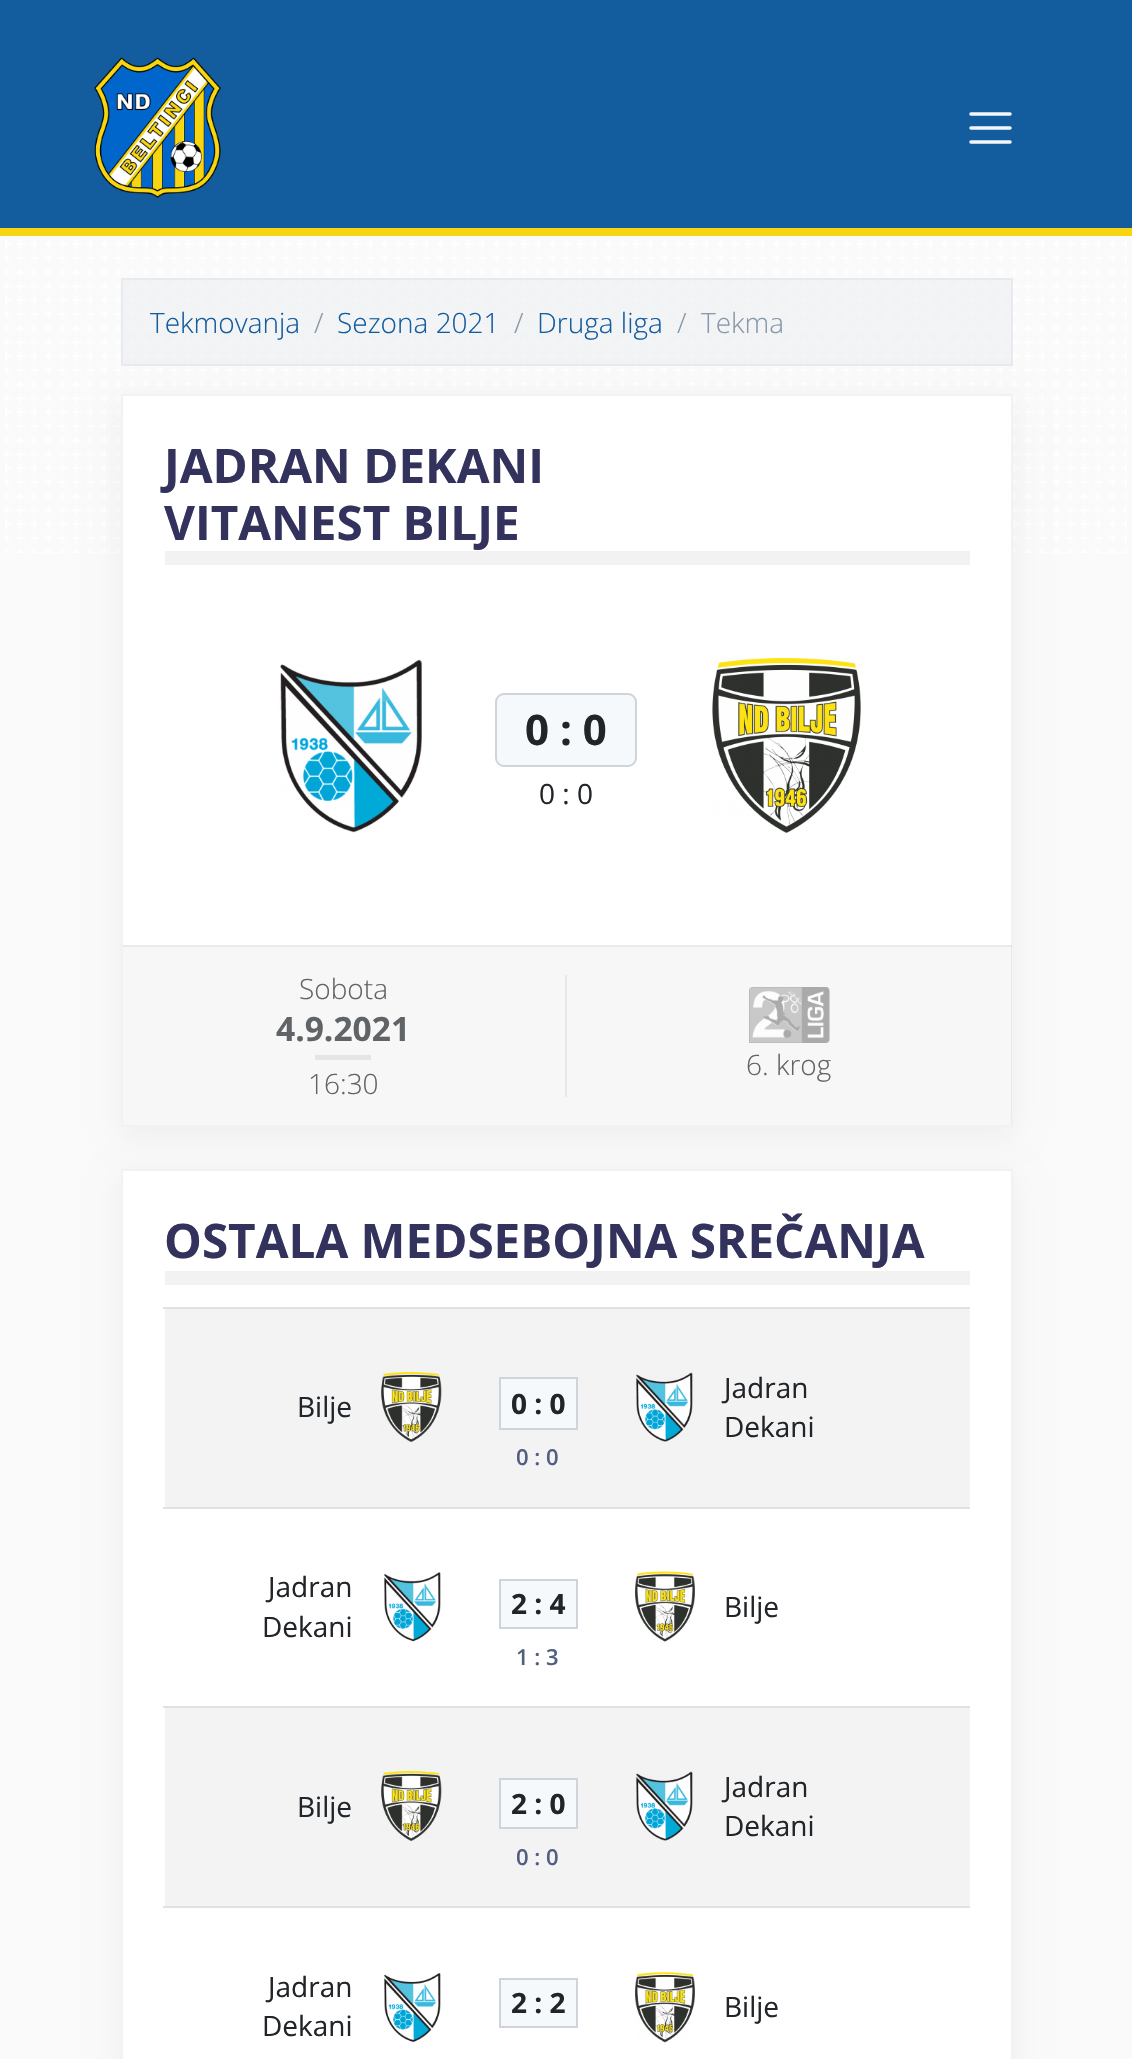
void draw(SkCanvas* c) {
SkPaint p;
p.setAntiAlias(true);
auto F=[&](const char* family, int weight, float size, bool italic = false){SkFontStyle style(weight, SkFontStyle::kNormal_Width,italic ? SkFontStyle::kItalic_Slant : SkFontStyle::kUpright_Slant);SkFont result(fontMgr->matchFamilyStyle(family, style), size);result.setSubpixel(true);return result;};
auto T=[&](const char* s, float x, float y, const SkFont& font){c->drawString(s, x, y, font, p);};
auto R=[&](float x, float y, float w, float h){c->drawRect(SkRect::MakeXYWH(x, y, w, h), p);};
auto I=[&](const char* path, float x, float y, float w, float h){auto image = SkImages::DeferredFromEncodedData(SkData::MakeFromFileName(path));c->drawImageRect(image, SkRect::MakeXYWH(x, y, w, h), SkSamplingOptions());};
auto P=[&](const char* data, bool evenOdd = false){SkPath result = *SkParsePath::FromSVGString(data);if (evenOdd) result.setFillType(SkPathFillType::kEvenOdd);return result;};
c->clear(0xfffafafa);
I("1.png",5,236,1122,317);
p.setColor(0xff135c9e);
R(0,0,1132,228);
p.setColor(0xfff7d611);
R(0,228,1132,8);
I("2.png",94,57,127,141);
p.setStroke(true);
p.setStrokeWidth(3.5);
p.setStrokeCap(SkPaint::kRound_Cap);
p.setColor(0xfff3f7fa);
c->drawPath(P("M971 114h39m-39 14h39m-39 14h39"),p);
p.setStroke(false);
p.setColor(0x80e9ecef);
c->drawRect(SkRect::MakeXYWH(122,279,890,86),p);
p.setStroke(true);
p.setStrokeWidth(2);
p.setStrokeCap(SkPaint::kButt_Cap);
p.setColor(0xffe8ebed);
c->drawRect(SkRect::MakeXYWH(122,279,890,86),p);
auto f1 = F("Open Sans",300,28);
p.setStroke(false);
p.setColor(0xff135c9e);
T("Tekmovanja",150,333,f1);
p.setColor(0xff8898aa);
T("/",314,333,f1);
p.setColor(0xff135c9e);
T("Sezona 2021",337,333,f1);
p.setColor(0xff8898aa);
T("/",514,333,f1);
p.setColor(0xff135c9e);
T("Druga liga",537,333,f1);
p.setColor(0xff8898aa);
T("/",677,333,f1);
T("Tekma",701,333,f1);
p.setColor(0x0d000000);
p.setMaskFilter(SkMaskFilter::MakeBlur(kNormal_SkBlurStyle, 14));
c->drawRect(SkRect::MakeXYWH(121,401,892,733),p);
p.setMaskFilter(nullptr);
p.setColor(0xffffffff);
c->drawRect(SkRect::MakeXYWH(122,395,890,731),p);
p.setStroke(true);
p.setColor(0xfff2f2f2);
c->drawRect(SkRect::MakeXYWH(122,395,890,731),p);
p.setStroke(false);
R(165,551,805,14);
auto f2 = F("Open Sans",700,47.6);
p.setColor(0xff32325d);
T("JADRAN DEKANI",164,483,f2);
T("VITANEST BILJE",164,540,f2);
I("3.png",279,659,143,174);
p.setColor(0xfff6f9fc);
c->drawRoundRect(SkRect::MakeXYWH(496,694,140,72),8,8,p);
p.setStroke(true);
p.setColor(0xffced4da);
c->drawRoundRect(SkRect::MakeXYWH(496,694,140,72),8,8,p);
auto f3 = F("Open Sans",700,42);
p.setStroke(false);
p.setColor(0xff212529);
T("0 : 0",525,745,f3);
auto f4 = F("Open Sans",400,28);
T("0 : 0",539,804,f4);
I("4.png",712,658,149,175);
p.setColor(0x08000000);
R(123,945,889,180);
p.setColor(0x0d000000);
R(123,945,889,2);
p.setColor(0xff616467);
T("Sobota",299,999,f1);
auto f5 = F("Open Sans",700,33.5);
T("4.9.2021",276,1041,f5);
p.setColor(0xffe5e5e5);
R(315,1055,56,5);
p.setColor(0xff616467);
T("16:30",308,1094,f1);
p.setColor(0xffe6e8eb);
R(565,975,2,122);
I("5.png",749,987,81,56);
p.setColor(0xff616467);
T("6. krog",746,1075,f1);
p.setColor(0x0d000000);
p.setMaskFilter(SkMaskFilter::MakeBlur(kNormal_SkBlurStyle, 14));
c->drawRect(SkRect::MakeXYWH(121,1176,892,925),p);
p.setMaskFilter(nullptr);
p.setColor(0xffffffff);
c->drawRect(SkRect::MakeXYWH(122,1170,890,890),p);
p.setStroke(true);
p.setColor(0xfff2f2f2);
c->drawRect(SkRect::MakeXYWH(122,1170,890,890),p);
p.setStroke(false);
R(165,1271,805,14);
p.setColor(0xff32325d);
T("OSTALA MEDSEBOJNA SREČANJA",164,1258,f2);
p.setColor(0xfff3f3f3);
R(165,1309,805,198);
p.setColor(0xffdee2e6);
R(163,1307,807,2);
p.setColor(0xff212529);
T("Bilje",297,1417,f4);
I("6.png",381,1372,61,70);
p.setColor(0xfff6f9fc);
c->drawRect(SkRect::MakeXYWH(500,1378,77,51),p);
p.setStroke(true);
p.setColor(0xffced4da);
c->drawRect(SkRect::MakeXYWH(500,1378,77,51),p);
auto f6 = F("Open Sans",700,28);
p.setStroke(false);
p.setColor(0xff212529);
T("0 : 0",511,1414,f6);
auto f7 = F("Open Sans",600,22);
p.setColor(0xff525f7f);
T("0 : 0",516,1465,f7);
I("7.png",636,1372,57,70);
p.setColor(0xff212529);
T("Jadran",724,1398,f4);
T("Dekani",724,1437,f4);
p.setColor(0xffdee2e6);
R(163,1507,807,2);
p.setColor(0xff212529);
T("Jadran",268,1597,f4);
T("Dekani",262,1637,f4);
I("8.png",384,1572,57,70);
p.setColor(0xfff6f9fc);
c->drawRect(SkRect::MakeXYWH(500,1580,77,48),p);
p.setStroke(true);
p.setColor(0xffced4da);
c->drawRect(SkRect::MakeXYWH(500,1580,77,48),p);
p.setStroke(false);
p.setColor(0xff212529);
T("2 : 4",511,1614,f6);
p.setColor(0xff525f7f);
T("1 : 3",516,1665,f7);
I("9.png",635,1571,60,71);
p.setColor(0xff212529);
T("Bilje",724,1617,f4);
p.setColor(0xfff3f3f3);
R(165,1708,805,198);
p.setColor(0xffdee2e6);
R(163,1706,807,2);
p.setColor(0xff212529);
T("Bilje",297,1817,f4);
I("6.png",381,1771,61,70);
p.setColor(0xfff6f9fc);
c->drawRect(SkRect::MakeXYWH(500,1779,77,49),p);
p.setStroke(true);
p.setColor(0xffced4da);
c->drawRect(SkRect::MakeXYWH(500,1779,77,49),p);
p.setStroke(false);
p.setColor(0xff212529);
T("2 : 0",511,1814,f6);
p.setColor(0xff525f7f);
T("0 : 0",516,1865,f7);
I("7.png",636,1771,57,70);
p.setColor(0xff212529);
T("Jadran",724,1797,f4);
T("Dekani",724,1836,f4);
p.setColor(0xffdee2e6);
R(163,1906,807,2);
p.setColor(0xff212529);
T("Jadran",268,1997,f4);
T("Dekani",262,2036,f4);
I("10.png",384,1973,57,70);
p.setColor(0xfff6f9fc);
c->drawRect(SkRect::MakeXYWH(500,1979,77,48),p);
p.setStroke(true);
p.setColor(0xffced4da);
c->drawRect(SkRect::MakeXYWH(500,1979,77,48),p);
p.setStroke(false);
p.setColor(0xff212529);
T("2 : 2",511,2013,f6);
I("11.png",635,1972,60,71);
T("Bilje",724,2017,f4);
}
